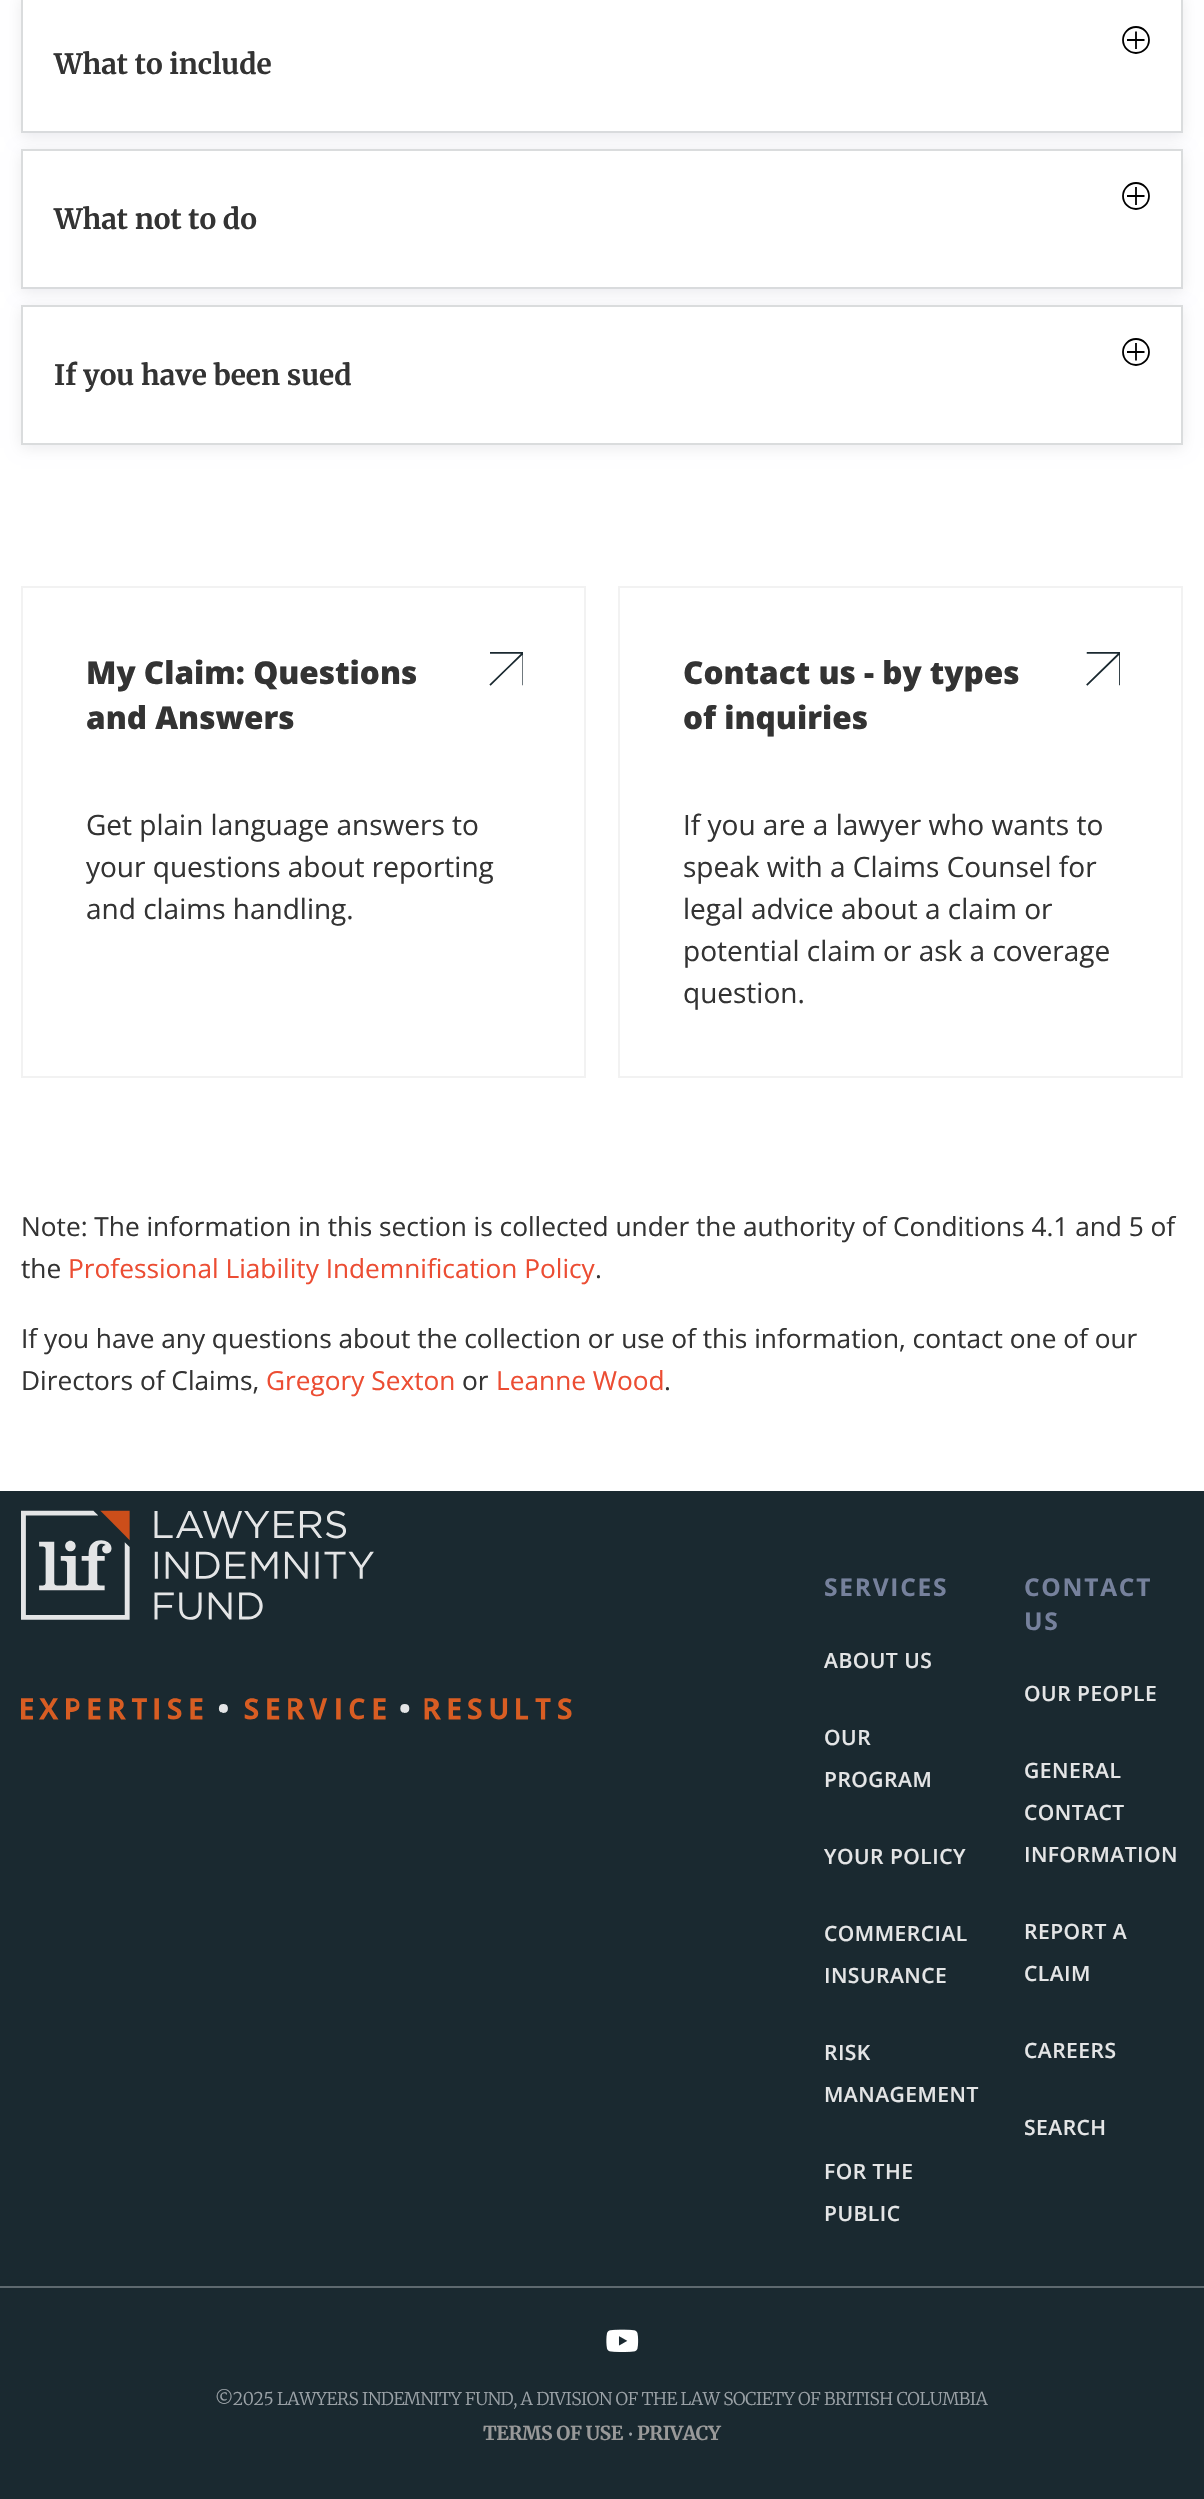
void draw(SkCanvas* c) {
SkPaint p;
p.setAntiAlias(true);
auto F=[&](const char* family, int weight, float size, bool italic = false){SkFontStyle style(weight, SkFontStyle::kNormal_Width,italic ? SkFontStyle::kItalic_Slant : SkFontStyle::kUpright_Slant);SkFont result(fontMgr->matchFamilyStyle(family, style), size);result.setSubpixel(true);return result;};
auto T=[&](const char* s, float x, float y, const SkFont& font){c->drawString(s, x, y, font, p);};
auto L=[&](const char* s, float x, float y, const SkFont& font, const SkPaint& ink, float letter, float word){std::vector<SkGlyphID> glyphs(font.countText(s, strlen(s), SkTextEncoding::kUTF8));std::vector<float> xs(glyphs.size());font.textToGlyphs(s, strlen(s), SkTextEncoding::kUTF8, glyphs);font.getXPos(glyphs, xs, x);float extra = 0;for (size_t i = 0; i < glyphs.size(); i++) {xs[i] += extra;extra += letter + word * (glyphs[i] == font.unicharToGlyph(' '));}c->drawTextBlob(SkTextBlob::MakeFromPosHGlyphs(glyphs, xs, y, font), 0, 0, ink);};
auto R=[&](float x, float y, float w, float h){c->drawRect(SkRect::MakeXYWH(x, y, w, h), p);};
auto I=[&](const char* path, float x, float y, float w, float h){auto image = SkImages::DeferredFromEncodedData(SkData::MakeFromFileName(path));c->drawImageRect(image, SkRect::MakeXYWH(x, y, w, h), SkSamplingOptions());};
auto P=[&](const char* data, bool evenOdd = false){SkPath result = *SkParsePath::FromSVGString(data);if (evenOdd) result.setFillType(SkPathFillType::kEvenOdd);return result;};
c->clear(0xffffffff);
c->save();
c->clipPath(P("M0 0h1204v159h-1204zm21-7h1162v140h-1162z",true),true);
p.setColor(0x1400001e);
p.setMaskFilter(SkMaskFilter::MakeBlur(kNormal_SkBlurStyle, 7));
c->drawRect(SkRect::MakeXYWH(21,-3,1162,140),p);
p.setMaskFilter(nullptr);
c->restore();
p.setStroke(true);
p.setStrokeWidth(2);
p.setColor(0xffdadcdd);
c->drawRect(SkRect::MakeXYWH(22,-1,1160,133),p);
p.setStrokeWidth(1.8);
p.setColor(0xff000000);
c->drawCircle(1136,40,13,p);
c->drawPath(P("M1136 31.5v17.5m-9-9h17.5"),p);
auto f1 = F("Merriweather",700,28);
p.setStroke(false);
p.setColor(0xff333333);
T("What to include",54,74,f1);
p.setColor(0x1400001e);
p.setMaskFilter(SkMaskFilter::MakeBlur(kNormal_SkBlurStyle, 7));
c->drawRect(SkRect::MakeXYWH(21,152,1162,140),p);
p.setMaskFilter(nullptr);
p.setColor(0xffffffff);
c->drawRect(SkRect::MakeXYWH(22,150,1160,138),p);
p.setStroke(true);
p.setStrokeWidth(2);
p.setColor(0xffdadcdd);
c->drawRect(SkRect::MakeXYWH(22,150,1160,138),p);
p.setStrokeWidth(1.8);
p.setColor(0xff000000);
c->drawCircle(1136,196,13,p);
c->drawPath(P("M1136 187v18m-9-9h17.5"),p);
p.setStroke(false);
p.setColor(0xff333333);
T("What not to do",54,229,f1);
p.setColor(0x1400001e);
p.setMaskFilter(SkMaskFilter::MakeBlur(kNormal_SkBlurStyle, 7));
c->drawRect(SkRect::MakeXYWH(21,308,1162,140),p);
p.setMaskFilter(nullptr);
p.setColor(0xffffffff);
c->drawRect(SkRect::MakeXYWH(22,306,1160,138),p);
p.setStroke(true);
p.setStrokeWidth(2);
p.setColor(0xffdadcdd);
c->drawRect(SkRect::MakeXYWH(22,306,1160,138),p);
p.setStrokeWidth(1.8);
p.setColor(0xff000000);
c->drawCircle(1136,352,13,p);
c->drawPath(P("M1136 343v17.5m-9-8.5h17.5"),p);
p.setStroke(false);
p.setColor(0xff333333);
T("If you have been sued",54,385,f1);
p.setStroke(true);
p.setStrokeWidth(2);
p.setColor(0xfff2f2f2);
c->drawRect(SkRect::MakeXYWH(22,587,563,490),p);
auto f2 = F("Open Sans",800,31.5);
p.setStroke(false);
p.setColor(0xff333333);
T("My Claim: Questions",86,684,f2);
T("and Answers",86,729,f2);
I("1.png",489,652,34,34);
auto f3 = F("Open Sans",400,28);
T("Get plain language answers to",86,835,f3);
T("your questions about reporting",86,877,f3);
T("and claims handling.",86,919,f3);
p.setStroke(true);
p.setColor(0xfff2f2f2);
c->drawRect(SkRect::MakeXYWH(619,587,563,490),p);
p.setStroke(false);
p.setColor(0xff333333);
T("Contact us - by types",683,684,f2);
T("of inquiries",683,729,f2);
I("2.png",1086,652,34,34);
T("If you are a lawyer who wants to",683,835,f3);
T("speak with a Claims Counsel for",683,877,f3);
T("legal advice about a claim or",683,919,f3);
T("potential claim or ask a coverage",683,961,f3);
T("question.",683,1003,f3);
auto f4 = F("Open Sans",400,26.25);
T("Note: The information in this section is collected under the authority of Conditions 4.1 and 5 of",21,1236,f4);
T("the",21,1278,f4);
p.setColor(0xffec4d33);
T("Professional Liability Indemnification Policy",68,1278,f4);
p.setColor(0xff333333);
T(".",595,1278,f4);
T("If you have any questions about the collection or use of this information, contact one of our",21,1348,f4);
T("Directors of Claims,",21,1390,f4);
p.setColor(0xffec4d33);
T("Gregory Sexton",266,1390,f4);
p.setColor(0xff333333);
T("or",462,1390,f4);
p.setColor(0xffec4d33);
T("Leanne Wood",496,1390,f4);
p.setColor(0xff333333);
T(".",664,1390,f4);
p.setColor(0xff1a2930);
R(0,1491,1204,1008);
I("3.png",21,1510,551,210);
auto f5 = F("Open Sans",700,24.5);
p.setColor(0xff76819c);
L("SERVICES",824,1596,f5,p,1.75,0);
auto f6 = F("Open Sans",600,21);
p.setColor(0xffe4e5e6);
L("ABOUT US",824,1668,f6,p,.5,0);
L("OUR",824,1745,f6,p,.5,0);
L("PROGRAM",824,1787,f6,p,.5,0);
L("YOUR POLICY",824,1864,f6,p,.5,0);
L("COMMERCIAL",824,1941,f6,p,.5,0);
L("INSURANCE",824,1983,f6,p,.5,0);
L("RISK",824,2060,f6,p,.5,0);
L("MANAGEMENT",824,2102,f6,p,.5,0);
L("FOR THE",824,2179,f6,p,.5,0);
L("PUBLIC",824,2221,f6,p,.5,0);
p.setColor(0xff76819c);
L("CONTACT",1024,1596,f5,p,1.75,0);
L("US",1024,1630,f5,p,1.75,0);
p.setColor(0xffe4e5e6);
L("OUR PEOPLE",1024,1701,f6,p,.5,0);
L("GENERAL",1024,1778,f6,p,.5,0);
L("CONTACT",1024,1820,f6,p,.5,0);
L("INFORMATION",1024,1862,f6,p,.5,0);
L("REPORT A",1024,1939,f6,p,.5,0);
L("CLAIM",1024,1981,f6,p,.5,0);
L("CAREERS",1024,2058,f6,p,.5,0);
L("SEARCH",1024,2135,f6,p,.5,0);
p.setColor(0xff5e696f);
R(0,2286,1204,2);
I("4.png",606,2329,33,23);
auto f7 = F("Merriweather",300,17.5);
p.setColor(0xff9ba2a7);
L("©2025 LAWYERS INDEMNITY FUND, A DIVISION OF THE LAW SOCIETY OF BRITISH COLUMBIA",215,2405,f7,p,-.45,0);
auto f8 = F("Merriweather",700,19.25);
p.setColor(0xff999999);
L("TERMS OF USE",483,2440,f8,p,-.45,0);
p.setColor(0xff9ba2a7);
L("•",627,2440,f7,p,-.45,0);
p.setColor(0xff999999);
L("PRIVACY",637,2440,f8,p,-.45,0);
}
